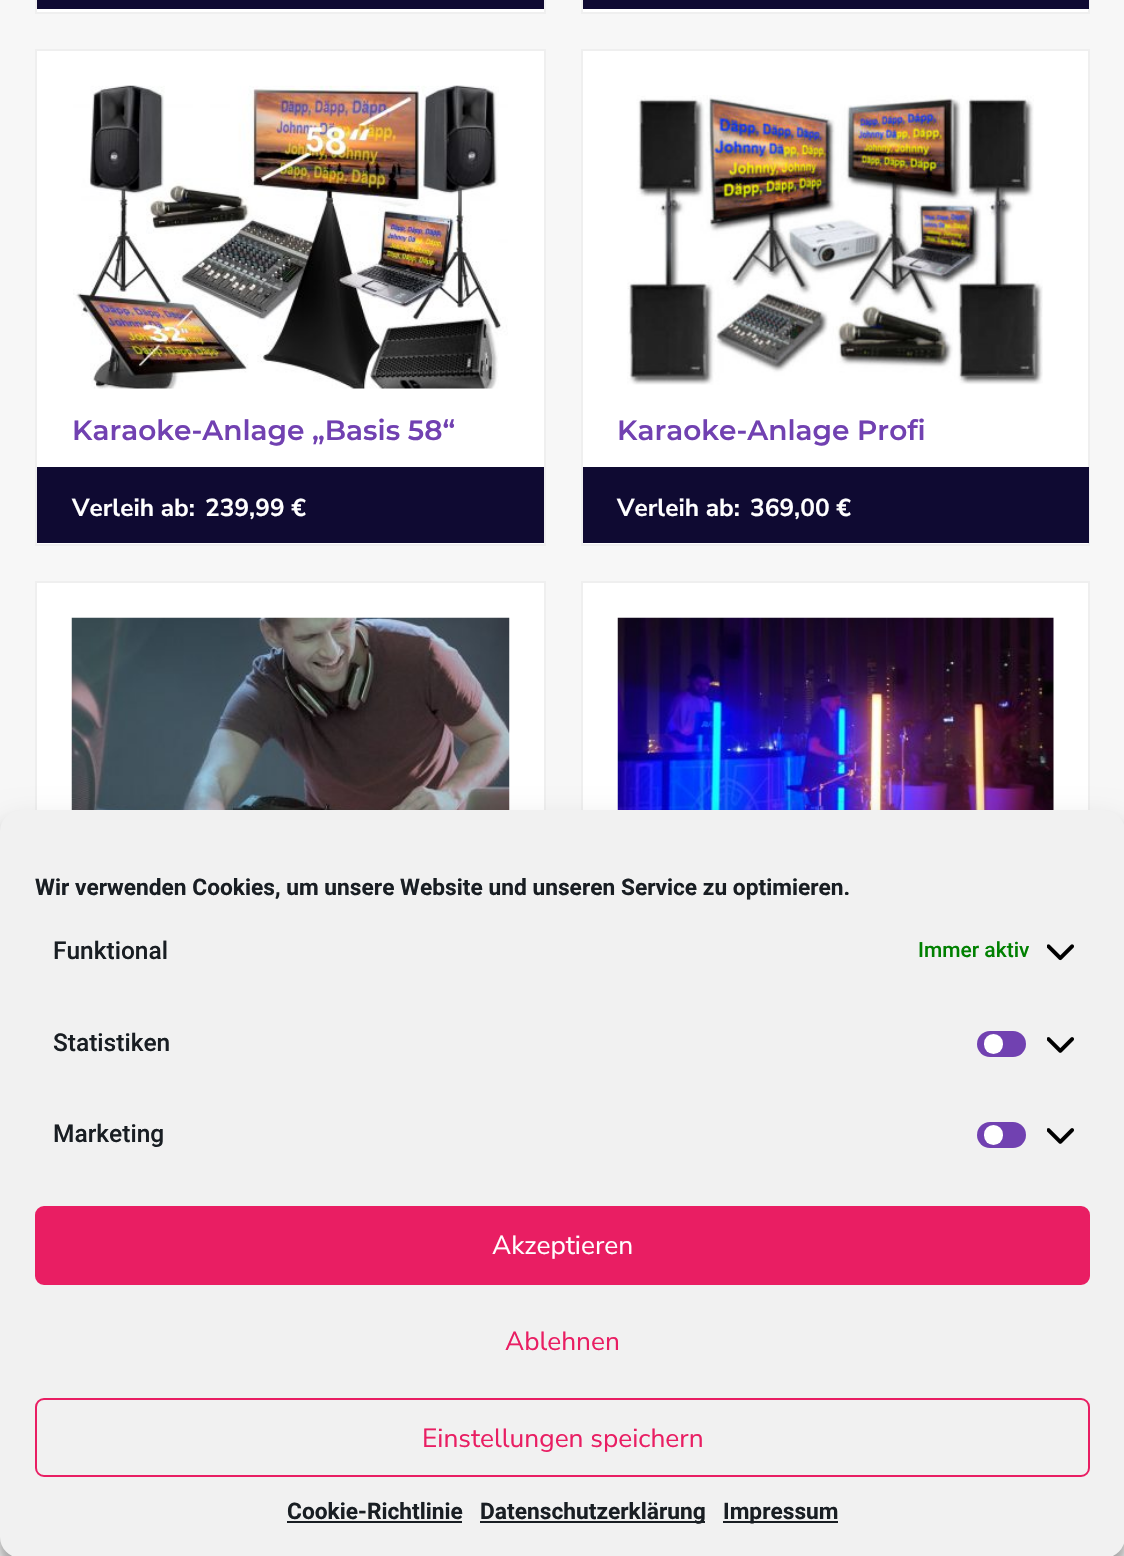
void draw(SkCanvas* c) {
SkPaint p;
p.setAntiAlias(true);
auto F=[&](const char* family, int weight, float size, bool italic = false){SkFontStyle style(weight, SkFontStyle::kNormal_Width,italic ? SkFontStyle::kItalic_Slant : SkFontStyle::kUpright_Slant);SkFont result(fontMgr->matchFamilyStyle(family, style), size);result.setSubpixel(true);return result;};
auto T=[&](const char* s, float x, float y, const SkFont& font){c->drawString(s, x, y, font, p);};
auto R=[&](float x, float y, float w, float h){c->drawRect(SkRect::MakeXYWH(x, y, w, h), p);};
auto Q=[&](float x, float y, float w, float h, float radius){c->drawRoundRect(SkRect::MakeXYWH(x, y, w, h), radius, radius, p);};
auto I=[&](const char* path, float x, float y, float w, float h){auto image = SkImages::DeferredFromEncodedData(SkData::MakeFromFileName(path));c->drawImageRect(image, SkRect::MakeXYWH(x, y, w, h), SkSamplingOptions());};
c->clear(0xfff7f7f7);
p.setColor(0xffffffff);
R(37,9,507,3);
p.setStroke(true);
p.setStrokeWidth(2);
p.setColor(0xffefefef);
c->drawRect(SkRect::MakeXYWH(36,-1,509,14),p);
p.setStroke(false);
p.setColor(0xff0f0a32);
R(37,0,507,9);
p.setColor(0xffffffff);
R(583,9,505,3);
p.setStroke(true);
p.setColor(0xffefefef);
c->drawRect(SkRect::MakeXYWH(582,-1,507,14),p);
p.setStroke(false);
p.setColor(0xff0f0a32);
R(583,0,506,9);
p.setColor(0xffffffff);
c->drawRect(SkRect::MakeXYWH(36,50,509,495),p);
p.setStroke(true);
p.setColor(0xffefefef);
c->drawRect(SkRect::MakeXYWH(36,50,509,495),p);
I("1.png",73,85,435,304);
auto f1 = F("Montserrat",600,28);
p.setStroke(false);
p.setColor(0xff7141b1);
T("Karaoke-Anlage „Basis 58“",72,440,f1);
p.setColor(0xff0f0a32);
R(37,467,507,76);
auto f2 = F("Nunito Sans",700,24.5);
p.setColor(0xffffffff);
T("Verleih ab:",72,516,f2);
T("239,99 €",205,516,f2);
c->drawRect(SkRect::MakeXYWH(582,50,507,495),p);
p.setStroke(true);
p.setColor(0xffefefef);
c->drawRect(SkRect::MakeXYWH(582,50,507,495),p);
I("2.png",627,95,416,290);
p.setStroke(false);
p.setColor(0xff7141b1);
T("Karaoke-Anlage Profi",617,440,f1);
p.setColor(0xff0f0a32);
R(583,467,506,76);
p.setColor(0xffffffff);
T("Verleih ab:",617,516,f2);
T("369,00 €",750,516,f2);
R(37,583,507,227);
p.setStroke(true);
p.setColor(0xffefefef);
c->drawRect(SkRect::MakeXYWH(36,582,509,541),p);
I("3.png",71,617,439,193);
p.setStroke(false);
p.setColor(0xffffffff);
R(583,583,505,227);
p.setStroke(true);
p.setColor(0xffefefef);
c->drawRect(SkRect::MakeXYWH(582,582,507,541),p);
I("4.png",617,617,437,193);
p.setStroke(false);
p.setColor(0x3b000000);
p.setMaskFilter(SkMaskFilter::MakeBlur(kNormal_SkBlurStyle, 5));
c->drawRoundRect(SkRect::MakeXYWH(0,821,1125,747),21,21,p);
p.setMaskFilter(nullptr);
p.setColor(0x30000000);
p.setMaskFilter(SkMaskFilter::MakeBlur(kNormal_SkBlurStyle, 17.5));
c->drawRoundRect(SkRect::MakeXYWH(0,828,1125,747),21,21,p);
p.setMaskFilter(nullptr);
p.setColor(0xfff1f1f1);
Q(0,810,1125,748,21);
auto f3 = F("Roboto",700,22.75);
p.setColor(0xff191e23);
T("Wir verwenden Cookies, um unsere Website und unseren Service zu optimieren.",35,895,f3);
auto f4 = F("Roboto",500,24.5);
T("Funktional",53,959,f4);
auto f5 = F("Roboto",500,21);
p.setColor(0xff008000);
T("Immer aktiv",918,957,f5);
I("5.png",1047,944,27,17);
p.setColor(0xff191e23);
T("Statistiken",53,1051,f4);
p.setColor(0xff7141b1);
Q(977,1031,49,26,13);
p.setColor(0xffffffff);
Q(984,1034,19,20,9.5);
I("6.png",1047,1037,27,16);
p.setColor(0xff191e23);
T("Marketing",53,1142,f4);
p.setColor(0xff7141b1);
Q(977,1122,49,26,13);
p.setColor(0xffffffff);
Q(984,1125,19,20,9.5);
I("6.png",1047,1128,27,16);
p.setColor(0xffe91e63);
c->drawRoundRect(SkRect::MakeXYWH(36,1207,1053,77),8,8,p);
p.setStroke(true);
c->drawRoundRect(SkRect::MakeXYWH(36,1207,1053,77),8,8,p);
auto f6 = F("Nunito Sans",400,26.25);
p.setStroke(false);
p.setColor(0xffffffff);
T("Akzeptieren",492,1254,f6);
p.setColor(0xffe91e63);
T("Ablehnen",505,1350,f6);
p.setStroke(true);
c->drawRoundRect(SkRect::MakeXYWH(36,1399,1053,77),8,8,p);
p.setStroke(false);
T("Einstellungen speichern",422,1447,f6);
p.setColor(0xff191e23);
T("Cookie-Richtlinie",287,1519,f3);
R(287,1521,175,2);
R(480,1521,225,2);
T("Datenschutzerklärung",480,1519,f3);
R(723,1521,115,2);
T("Impressum",723,1519,f3);
}
